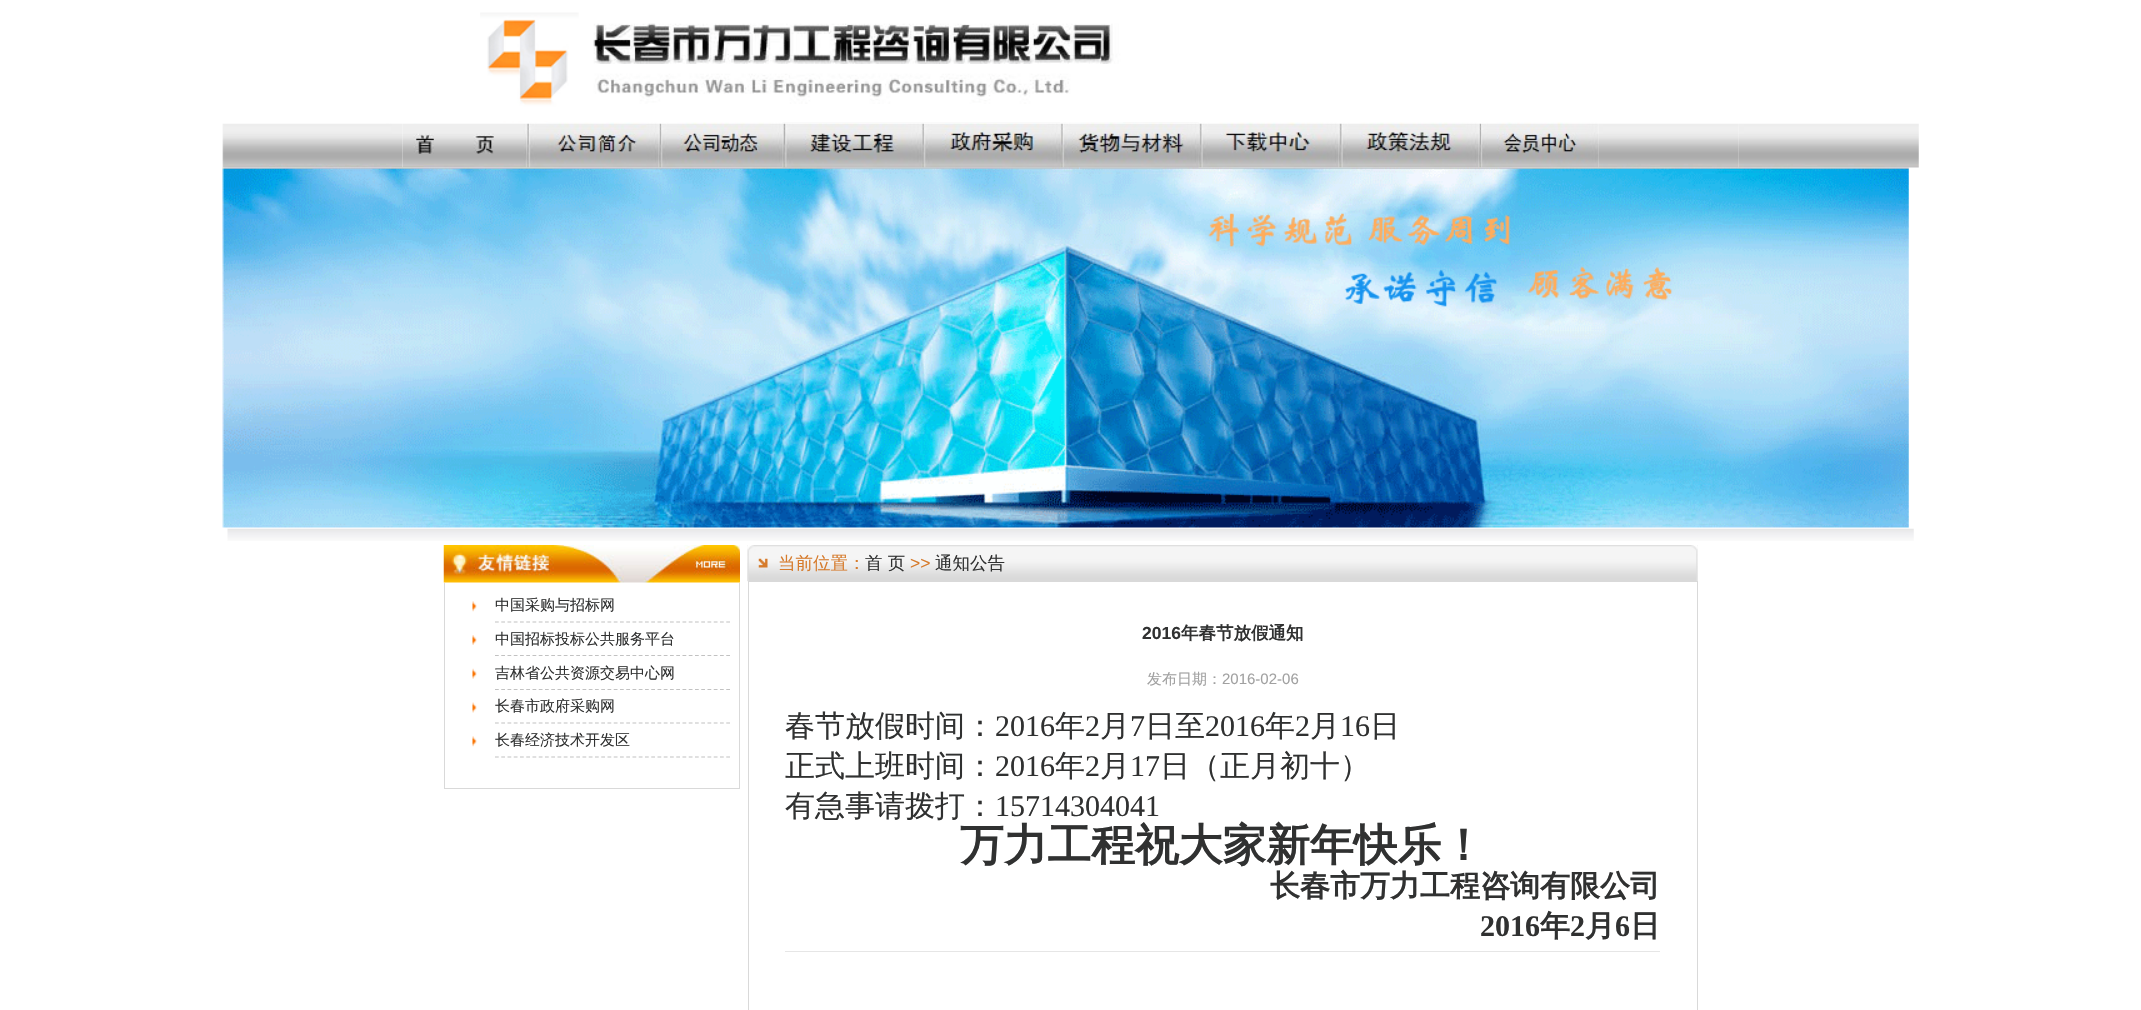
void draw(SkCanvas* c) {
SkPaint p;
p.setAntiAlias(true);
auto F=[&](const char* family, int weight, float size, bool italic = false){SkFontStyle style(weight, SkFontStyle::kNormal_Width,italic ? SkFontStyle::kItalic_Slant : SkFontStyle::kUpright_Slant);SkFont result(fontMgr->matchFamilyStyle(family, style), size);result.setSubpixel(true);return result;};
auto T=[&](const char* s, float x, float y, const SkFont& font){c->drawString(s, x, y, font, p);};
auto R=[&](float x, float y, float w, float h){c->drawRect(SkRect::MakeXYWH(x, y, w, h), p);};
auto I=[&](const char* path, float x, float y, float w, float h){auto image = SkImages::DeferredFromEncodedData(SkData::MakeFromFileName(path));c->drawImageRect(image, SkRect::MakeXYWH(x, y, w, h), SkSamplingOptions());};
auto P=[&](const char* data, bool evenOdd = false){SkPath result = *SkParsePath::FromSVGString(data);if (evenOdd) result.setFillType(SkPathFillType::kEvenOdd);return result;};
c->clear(0xffffffff);
I("6.png",782,122,140,46);
I("8.png",921,122,139,46);
I("10.png",1060,122,139,46);
I("1.png",480,12,643,111);
I("2.png",222,123,181,45);
I("3.png",402,123,125,45);
I("4.png",526,122,133,46);
I("5.png",658,122,125,46);
I("7.png",782,123,140,45);
I("9.png",921,123,139,45);
I("11.png",1060,122,139,46);
I("12.png",1199,122,140,46);
I("13.png",1338,122,141,46);
I("14.png",1478,122,121,46);
I("15.png",1598,123,141,45);
I("16.png",1738,123,181,45);
I("17.png",222,167,1687,361);
I("18.png",227,528,1687,13);
I("19.png",443,545,297,38);
p.setColor(0xffd9d9d9);
R(739,583,1,206);
R(444,788,296,1);
R(444,583,1,206);
I("20.png",472,601,5,11);
p.setStroke(true);
p.setStrokeWidth(1.2);
p.setColor(0xffc2c2c2);
p.setPathEffect(SkDashPathEffect::Make({{3.75f,2.5f}}, 0));
c->drawPath(P("M495 622h235"),p);
p.setPathEffect(nullptr);
auto f1 = F("WenQuanYi Zen Hei",500,15);
p.setStroke(false);
p.setColor(0xff303131);
T("中国采购与招标网",495,610,f1);
I("21.png",472,635,5,10);
p.setStroke(true);
p.setColor(0xffc2c2c2);
p.setPathEffect(SkDashPathEffect::Make({{3.75f,2.5f}}, 0));
c->drawPath(P("M495 655.5h235"),p);
p.setPathEffect(nullptr);
p.setStroke(false);
p.setColor(0xff303131);
T("中国招标投标公共服务平台",495,644,f1);
I("22.png",472,668,5,11);
p.setStroke(true);
p.setColor(0xffc2c2c2);
p.setPathEffect(SkDashPathEffect::Make({{3.75f,2.5f}}, 0));
c->drawPath(P("M495 689.5h235"),p);
p.setPathEffect(nullptr);
p.setStroke(false);
p.setColor(0xff303131);
T("吉林省公共资源交易中心网",495,678,f1);
I("23.png",472,702,5,11);
p.setStroke(true);
p.setColor(0xffc2c2c2);
p.setPathEffect(SkDashPathEffect::Make({{3.75f,2.5f}}, 0));
c->drawPath(P("M495 723h235"),p);
p.setPathEffect(nullptr);
p.setStroke(false);
p.setColor(0xff303131);
T("长春市政府采购网",495,711,f1);
I("20.png",472,736,5,11);
p.setStroke(true);
p.setColor(0xffc2c2c2);
p.setPathEffect(SkDashPathEffect::Make({{3.75f,2.5f}}, 0));
c->drawPath(P("M495 757h235"),p);
p.setPathEffect(nullptr);
p.setStroke(false);
p.setColor(0xff303131);
T("长春经济技术开发区",495,745,f1);
I("24.png",747,545,951,37);
I("25.png",747,545,21,36);
auto f2 = F("WenQuanYi Zen Hei",500,17.5);
p.setColor(0xffd67b2c);
T("当前位置：",778,569,f2);
p.setColor(0xff303131);
T("首 页",865,569,f2);
auto f3 = F("Liberation Sans",400,17.5);
p.setColor(0xffd67b2c);
T(">>",910,569,f3);
p.setColor(0xff303131);
T("通知公告",935,569,f2);
I("26.png",1691,545,7,36);
p.setStroke(true);
p.setStrokeWidth(1);
p.setColor(0xffd9d9d9);
c->drawRect(SkRect::MakeXYWH(748.5,581.5,949,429),p);
auto f4 = F("Liberation Sans",700,17.5);
p.setStroke(false);
p.setColor(0xff303131);
T("2016",1142,639,f4);
auto f5 = F("WenQuanYi Zen Hei",700,17.5);
T("年春节放假通知",1181,639,f5);
p.setColor(0xffa1a1a1);
T("发布日期：",1147,684,f1);
auto f6 = F("Liberation Sans",400,15);
T("2016-02-06",1222,684,f6);
p.setColor(0xffe6e6e6);
R(785,951,875,1);
auto f7 = F("WenQuanYi Zen Hei",500,30);
p.setColor(0xff303131);
T("春节放假时间：",785,736,f7);
auto f8 = F("Liberation Serif",400,30);
T("2016",995,736,f8);
T("年",1055,736,f7);
T("2",1085,736,f8);
T("月",1100,736,f7);
T("7",1130,736,f8);
T("日至",1145,736,f7);
T("2016",1205,736,f8);
T("年",1265,736,f7);
T("2",1295,736,f8);
T("月",1310,736,f7);
T("16",1340,736,f8);
T("日",1370,736,f7);
T("正式上班时间：",785,776,f7);
T("2016",995,776,f8);
T("年",1055,776,f7);
T("2",1085,776,f8);
T("月",1100,776,f7);
T("17",1130,776,f8);
T("日（正月初十）",1160,776,f7);
T("有急事请拨打：",785,816,f7);
T("15714304041",995,816,f8);
auto f9 = F("WenQuanYi Zen Hei",700,43.75);
T("万力工程祝大家新年快乐！",960,860,f9);
auto f10 = F("WenQuanYi Zen Hei",700,30);
T("长春市万力工程咨询有限公司",1270,896,f10);
auto f11 = F("Liberation Serif",700,30);
T("2016",1480,936,f11);
T("年",1540,936,f10);
T("2",1570,936,f11);
T("月",1585,936,f10);
T("6",1615,936,f11);
T("日",1630,936,f10);
}
